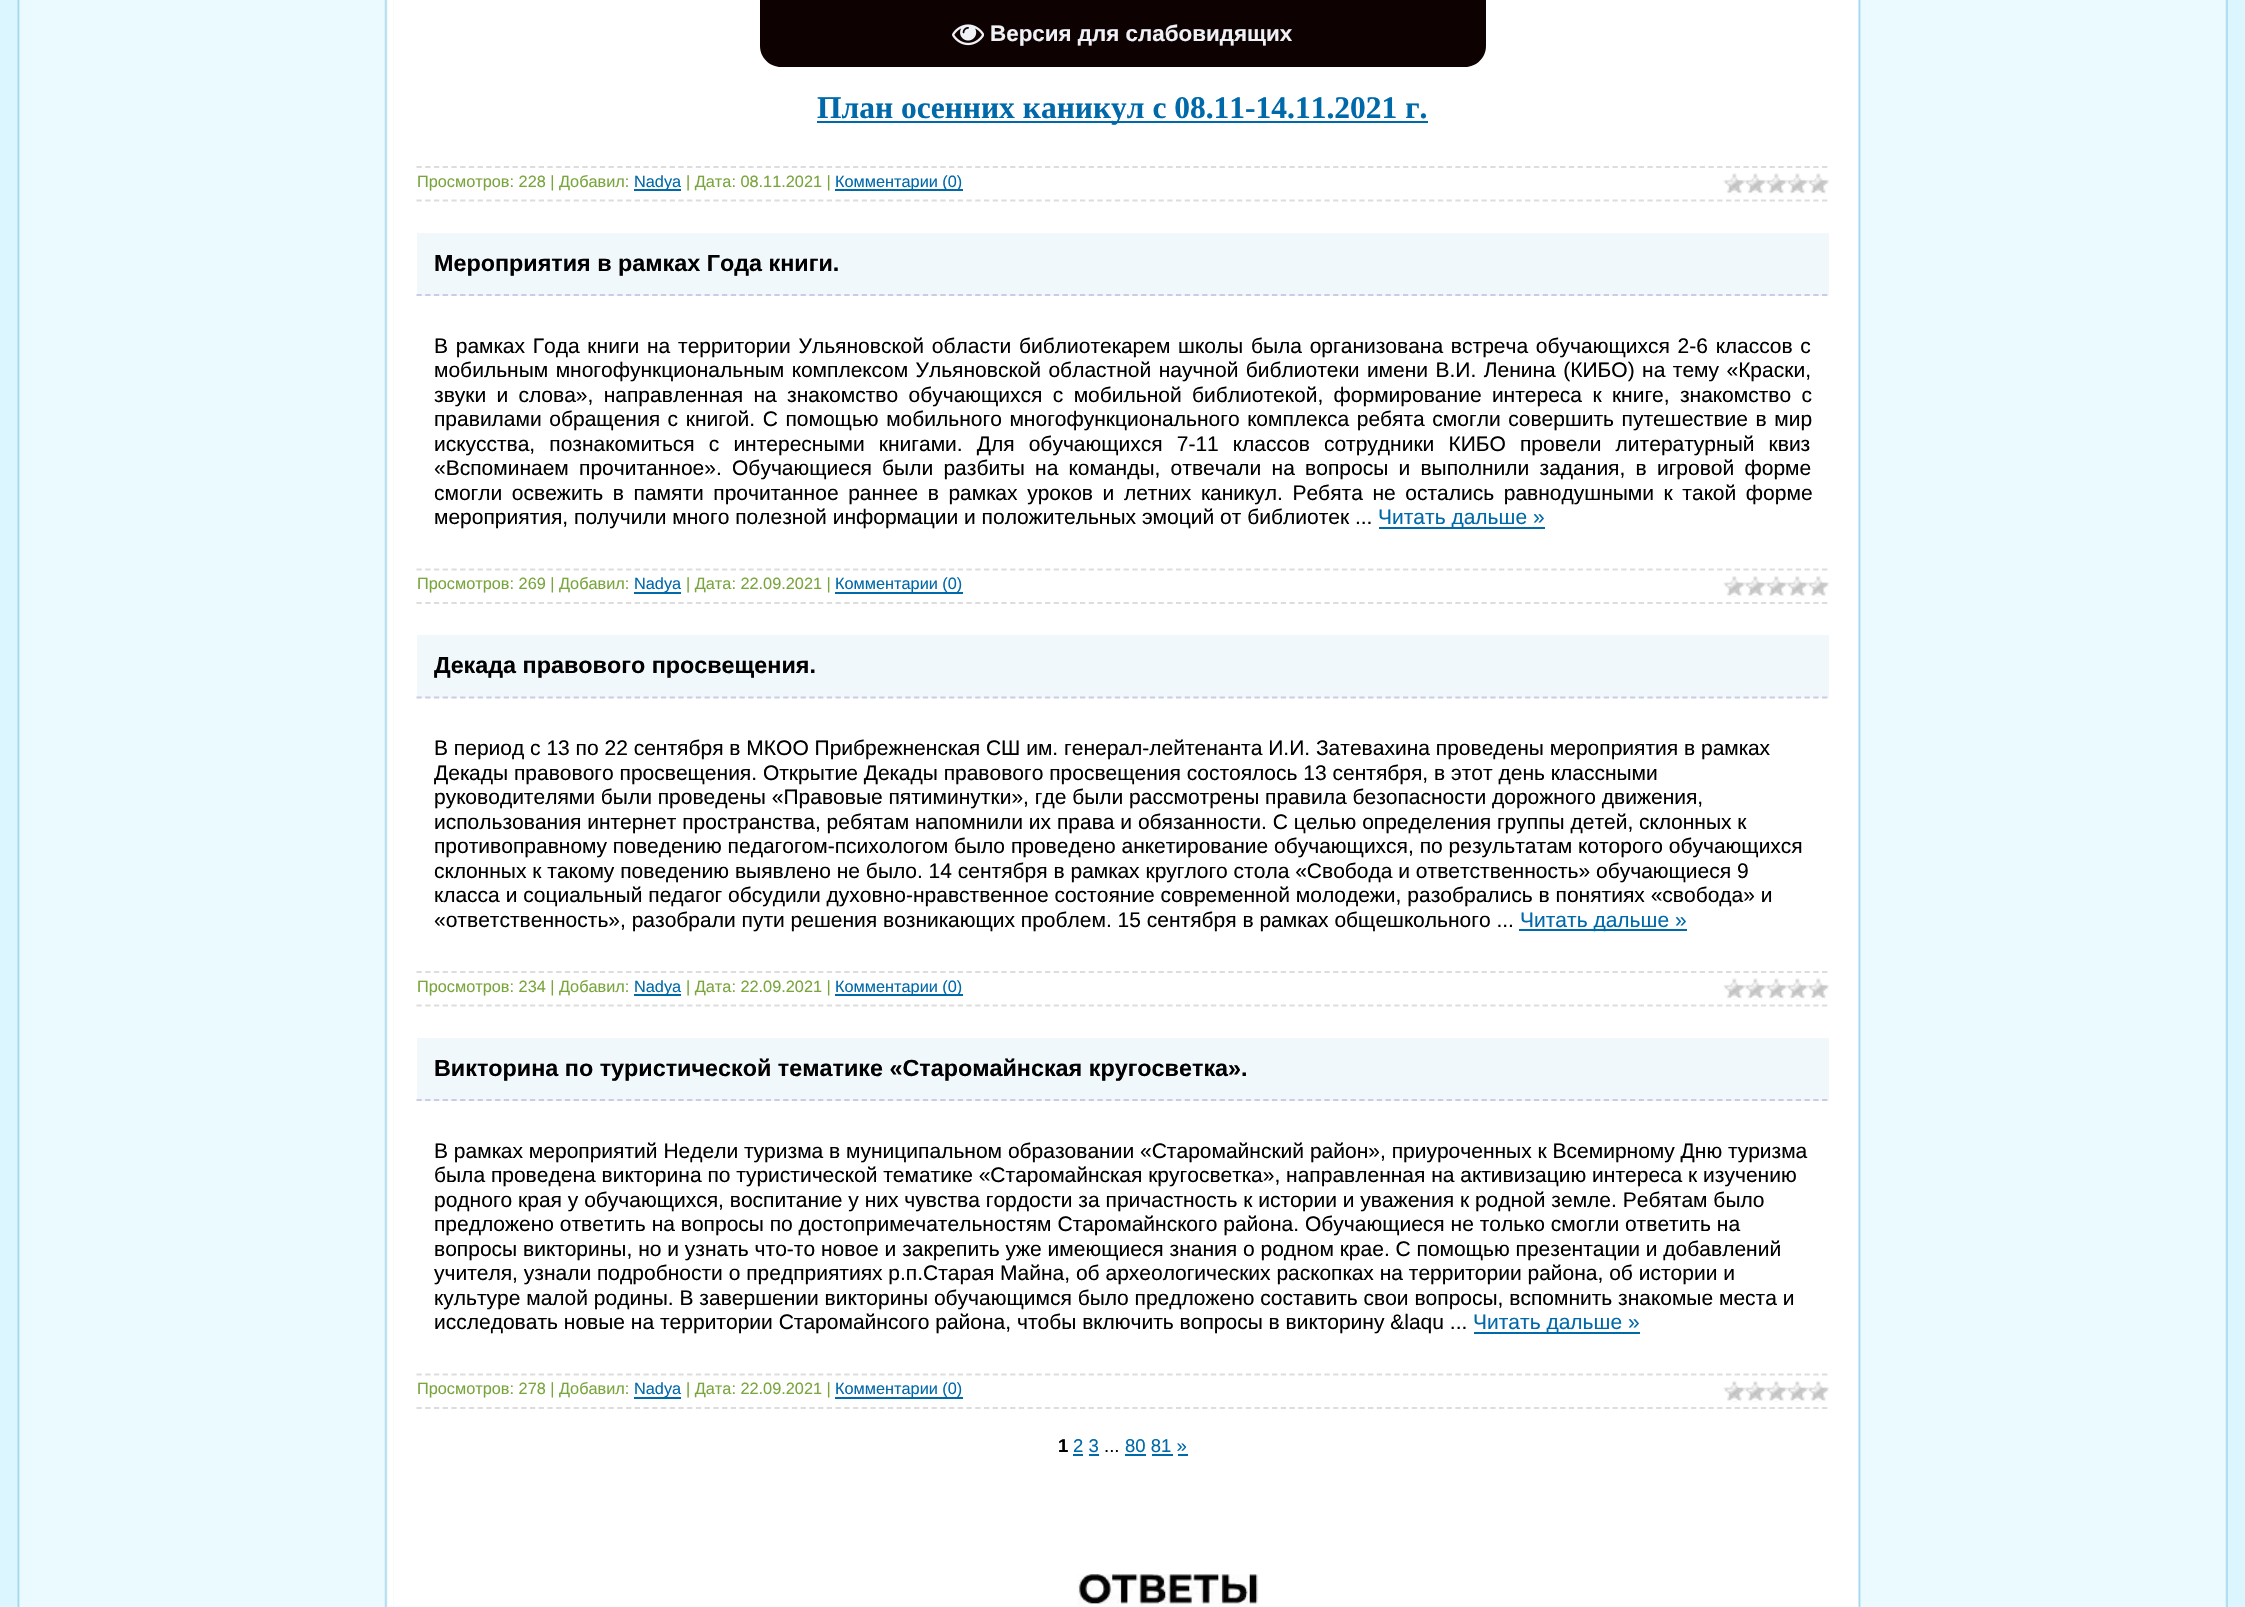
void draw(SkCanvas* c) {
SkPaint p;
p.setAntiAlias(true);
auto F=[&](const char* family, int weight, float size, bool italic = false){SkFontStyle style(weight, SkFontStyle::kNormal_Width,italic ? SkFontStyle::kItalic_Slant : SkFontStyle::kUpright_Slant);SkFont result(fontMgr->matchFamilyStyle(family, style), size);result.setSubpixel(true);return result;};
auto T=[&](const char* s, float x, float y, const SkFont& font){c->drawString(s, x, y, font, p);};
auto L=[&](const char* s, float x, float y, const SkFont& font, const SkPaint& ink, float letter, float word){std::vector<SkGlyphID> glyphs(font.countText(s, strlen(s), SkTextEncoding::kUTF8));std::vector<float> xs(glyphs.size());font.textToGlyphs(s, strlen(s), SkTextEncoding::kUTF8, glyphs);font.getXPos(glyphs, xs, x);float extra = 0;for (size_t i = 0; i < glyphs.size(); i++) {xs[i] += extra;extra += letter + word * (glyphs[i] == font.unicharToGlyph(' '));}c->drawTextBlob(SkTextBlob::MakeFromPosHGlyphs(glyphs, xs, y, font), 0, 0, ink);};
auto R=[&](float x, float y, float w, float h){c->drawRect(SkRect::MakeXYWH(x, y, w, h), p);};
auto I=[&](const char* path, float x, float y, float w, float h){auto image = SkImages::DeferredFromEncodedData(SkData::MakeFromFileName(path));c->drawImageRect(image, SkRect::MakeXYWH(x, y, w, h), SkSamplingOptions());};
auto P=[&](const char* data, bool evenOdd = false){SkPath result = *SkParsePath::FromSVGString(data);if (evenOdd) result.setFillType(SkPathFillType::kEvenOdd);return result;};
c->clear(0xffdcf6ff);
p.setColor(0xffffffff);
R(394,0,1458,1607);
p.setColor(0xff0d0101);
c->drawPath(P("M760 0h726v46c0 11.5-9.5 21-21 21h-684c-11.5 0-21-9.5-21-21z"),p);
I("1.png",952,24,32,22);
auto f1 = F("Liberation Sans",700,22.4);
p.setColor(0xfff0f0f7);
T("Версия для слабовидящих",990,41,f1);
I("2.png",17,0,377,1607);
p.setColor(0xff0069a9);
R(817,121,611,2);
auto f2 = F("Liberation Serif",700,31.5);
T("План осенних каникул с 08.11-14.11.2021 г.",817,118,f2);
p.setStroke(true);
p.setStrokeWidth(1.8);
p.setColor(0xffdddddd);
p.setPathEffect(SkDashPathEffect::Make({{5.25f,3.48f}}, 0));
c->drawPath(P("M416.5 167h1412.5"),p);
p.setPathEffect(nullptr);
p.setPathEffect(SkDashPathEffect::Make({{5.25f,3.48f}}, 0));
c->drawPath(P("M416.5 200.5h1412.5"),p);
p.setPathEffect(nullptr);
auto f3 = F("Liberation Sans",400,16.3);
p.setStroke(false);
p.setColor(0xff79a53d);
T("Просмотров: 228 | Добавил:",417,187,f3);
p.setColor(0xff0069a9);
R(634,189,47,2);
T("Nadya",634,187,f3);
p.setColor(0xff79a53d);
T("| Дата: 08.11.2021 |",686,187,f3);
p.setColor(0xff0069a9);
R(835,189,128,2);
T("Комментарии (0)",835,187,f3);
I("3.png",1723,173,106,22);
p.setColor(0xfff1f8fb);
R(417,233,1412,63);
p.setStroke(true);
p.setColor(0xffcbcbe6);
p.setPathEffect(SkDashPathEffect::Make({{5.25f,3.48f}}, 0));
c->drawPath(P("M416.5 295h1412.5"),p);
p.setPathEffect(nullptr);
auto f4 = F("Liberation Sans",700,23.35);
p.setStroke(false);
p.setColor(0xff000000);
T("Мероприятия в рамках Года книги.",434,271,f4);
auto f5 = F("Liberation Sans",400,21);
L("В рамках Года книги на территории Ульяновской области библиотекарем школы была организована встреча обучающихся 2-6 классов с",434,353,f5,p,0,1.9);
L("мобильным многофункциональным комплексом Ульяновской областной научной библиотеки имени В.И. Ленина (КИБО) на тему «Краски,",434,377,f5,p,0,1.6);
L("звуки и слова», направленная на знакомство обучающихся с мобильной библиотекой, формирование интереса к книге, знакомство с",434,402,f5,p,0,4.5);
L("правилами обращения с книгой. С помощью мобильного многофункционального комплекса ребята смогли совершить путешествие в мир",434,426,f5,p,0,1.75);
L("искусства, познакомиться с интересными книгами. Для обучающихся 7-11 классов сотрудники КИБО провели литературный квиз",434,451,f5,p,0,8.25);
L("«Вспоминаем прочитанное». Обучающиеся были разбиты на команды, отвечали на вопросы и выполнили задания, в игровой форме",434,475,f5,p,0,4.4);
L("смогли освежить в памяти прочитанное раннее в рамках уроков и летних каникул. Ребята не остались равнодушными к такой форме",434,500,f5,p,0,3.75);
T("мероприятия, получили много полезной информации и положительных эмоций от библиотек ...",434,524,f5);
p.setColor(0xff0069a9);
R(1379,527,166,2);
T("Читать дальше »",1378,524,f5);
p.setStroke(true);
p.setColor(0xffdddddd);
p.setPathEffect(SkDashPathEffect::Make({{5.25f,3.48f}}, 0));
c->drawPath(P("M416.5 569.5h1412.5"),p);
p.setPathEffect(nullptr);
p.setPathEffect(SkDashPathEffect::Make({{5.25f,3.48f}}, 0));
c->drawPath(P("M416.5 603h1412.5"),p);
p.setPathEffect(nullptr);
p.setStroke(false);
p.setColor(0xff79a53d);
T("Просмотров: 269 | Добавил:",417,589,f3);
p.setColor(0xff0069a9);
R(634,592,47,2);
T("Nadya",634,589,f3);
p.setColor(0xff79a53d);
T("| Дата: 22.09.2021 |",686,589,f3);
p.setColor(0xff0069a9);
R(835,592,128,2);
T("Комментарии (0)",835,589,f3);
I("4.png",1723,576,106,21);
p.setColor(0xfff1f8fb);
R(417,635,1412,63);
p.setStroke(true);
p.setColor(0xffcbcbe6);
p.setPathEffect(SkDashPathEffect::Make({{5.25f,3.48f}}, 0));
c->drawPath(P("M416.5 697.5h1412.5"),p);
p.setPathEffect(nullptr);
p.setStroke(false);
p.setColor(0xff000000);
T("Декада правового просвещения.",434,673,f4);
T("В период с 13 по 22 сентября в МКОО Прибрежненская СШ им. генерал-лейтенанта И.И. Затевахина проведены мероприятия в рамках",434,755,f5);
T("Декады правового просвещения. Открытие Декады правового просвещения состоялось 13 сентября, в этот день классными",434,780,f5);
T("руководителями были проведены «Правовые пятиминутки», где были рассмотрены правила безопасности дорожного движения,",434,804,f5);
T("использования интернет пространства, ребятам напомнили их права и обязанности. С целью определения группы детей, склонных к",434,829,f5);
T("противоправному поведению педагогом-психологом было проведено анкетирование обучающихся, по результатам которого обучающихся",434,853,f5);
T("склонных к такому поведению выявлено не было. 14 сентября в рамках круглого стола «Свобода и ответственность» обучающиеся 9",434,878,f5);
T("класса и социальный педагог обсудили духовно-нравственное состояние современной молодежи, разобрались в понятиях «свобода» и",434,902,f5);
T("«ответственность», разобрали пути решения возникающих проблем. 15 сентября в рамках общешкольного ...",434,927,f5);
p.setColor(0xff0069a9);
R(1519,929,168,2);
T("Читать дальше »",1520,927,f5);
p.setStroke(true);
p.setColor(0xffdddddd);
p.setPathEffect(SkDashPathEffect::Make({{5.25f,3.48f}}, 0));
c->drawPath(P("M416.5 972h1412.5"),p);
p.setPathEffect(nullptr);
p.setPathEffect(SkDashPathEffect::Make({{5.25f,3.48f}}, 0));
c->drawPath(P("M416.5 1005.5h1412.5"),p);
p.setPathEffect(nullptr);
p.setStroke(false);
p.setColor(0xff79a53d);
T("Просмотров: 234 | Добавил:",417,992,f3);
p.setColor(0xff0069a9);
R(634,994,47,2);
T("Nadya",634,992,f3);
p.setColor(0xff79a53d);
T("| Дата: 22.09.2021 |",686,992,f3);
p.setColor(0xff0069a9);
R(835,994,128,2);
T("Комментарии (0)",835,992,f3);
I("5.png",1723,978,106,22);
p.setColor(0xfff1f8fb);
R(417,1038,1412,63);
p.setStroke(true);
p.setColor(0xffcbcbe6);
p.setPathEffect(SkDashPathEffect::Make({{5.25f,3.48f}}, 0));
c->drawPath(P("M416.5 1100h1412.5"),p);
p.setPathEffect(nullptr);
p.setStroke(false);
p.setColor(0xff000000);
T("Викторина по туристической тематике «Старомайнская кругосветка».",434,1076,f4);
T("В рамках мероприятий Недели туризма в муниципальном образовании «Старомайнский район», приуроченных к Всемирному Дню туризма",434,1158,f5);
T("была проведена викторина по туристической тематике «Старомайнская кругосветка», направленная на активизацию интереса к изучению",434,1182,f5);
T("родного края у обучающихся, воспитание у них чувства гордости за причастность к истории и уважения к родной земле. Ребятам было",434,1207,f5);
T("предложено ответить на вопросы по достопримечательностям Старомайнского района. Обучающиеся не только смогли ответить на",434,1231,f5);
T("вопросы викторины, но и узнать что-то новое и закрепить уже имеющиеся знания о родном крае. С помощью презентации и добавлений",434,1256,f5);
T("учителя, узнали подробности о предприятиях р.п.Старая Майна, об археологических раскопках на территории района, об истории и",434,1280,f5);
T("культуре малой родины. В завершении викторины обучающимся было предложено составить свои вопросы, вспомнить знакомые места и",434,1305,f5);
T("исследовать новые на территории Старомайнсого района, чтобы включить вопросы в викторину &laqu ...",434,1329,f5);
p.setColor(0xff0069a9);
R(1474,1332,166,2);
T("Читать дальше »",1473,1329,f5);
p.setStroke(true);
p.setColor(0xffdddddd);
p.setPathEffect(SkDashPathEffect::Make({{5.25f,3.48f}}, 0));
c->drawPath(P("M416.5 1374.5h1412.5"),p);
p.setPathEffect(nullptr);
p.setPathEffect(SkDashPathEffect::Make({{5.25f,3.48f}}, 0));
c->drawPath(P("M416.5 1408h1412.5"),p);
p.setPathEffect(nullptr);
p.setStroke(false);
p.setColor(0xff79a53d);
T("Просмотров: 278 | Добавил:",417,1394,f3);
p.setColor(0xff0069a9);
R(634,1397,47,2);
T("Nadya",634,1394,f3);
p.setColor(0xff79a53d);
T("| Дата: 22.09.2021 |",686,1394,f3);
p.setColor(0xff0069a9);
R(835,1397,128,2);
T("Комментарии (0)",835,1394,f3);
I("4.png",1723,1381,106,21);
auto f6 = F("Liberation Sans",700,18.5);
p.setColor(0xff000000);
T("1",1058,1452,f6);
auto f7 = F("Liberation Sans",400,18.5);
p.setColor(0xff0069a9);
T("2 3",1073,1452,f7);
R(1073,1454,10,2);
p.setColor(0xff000000);
T("...",1104,1452,f7);
p.setColor(0xff0069a9);
T("80 81 »",1125,1452,f7);
R(1125,1454,21,2);
R(1089,1454,10,2);
R(1152,1454,21,2);
R(1178,1454,10,2);
I("6.png",1077,1574,182,32);
I("7.png",1852,0,376,1607);
}
